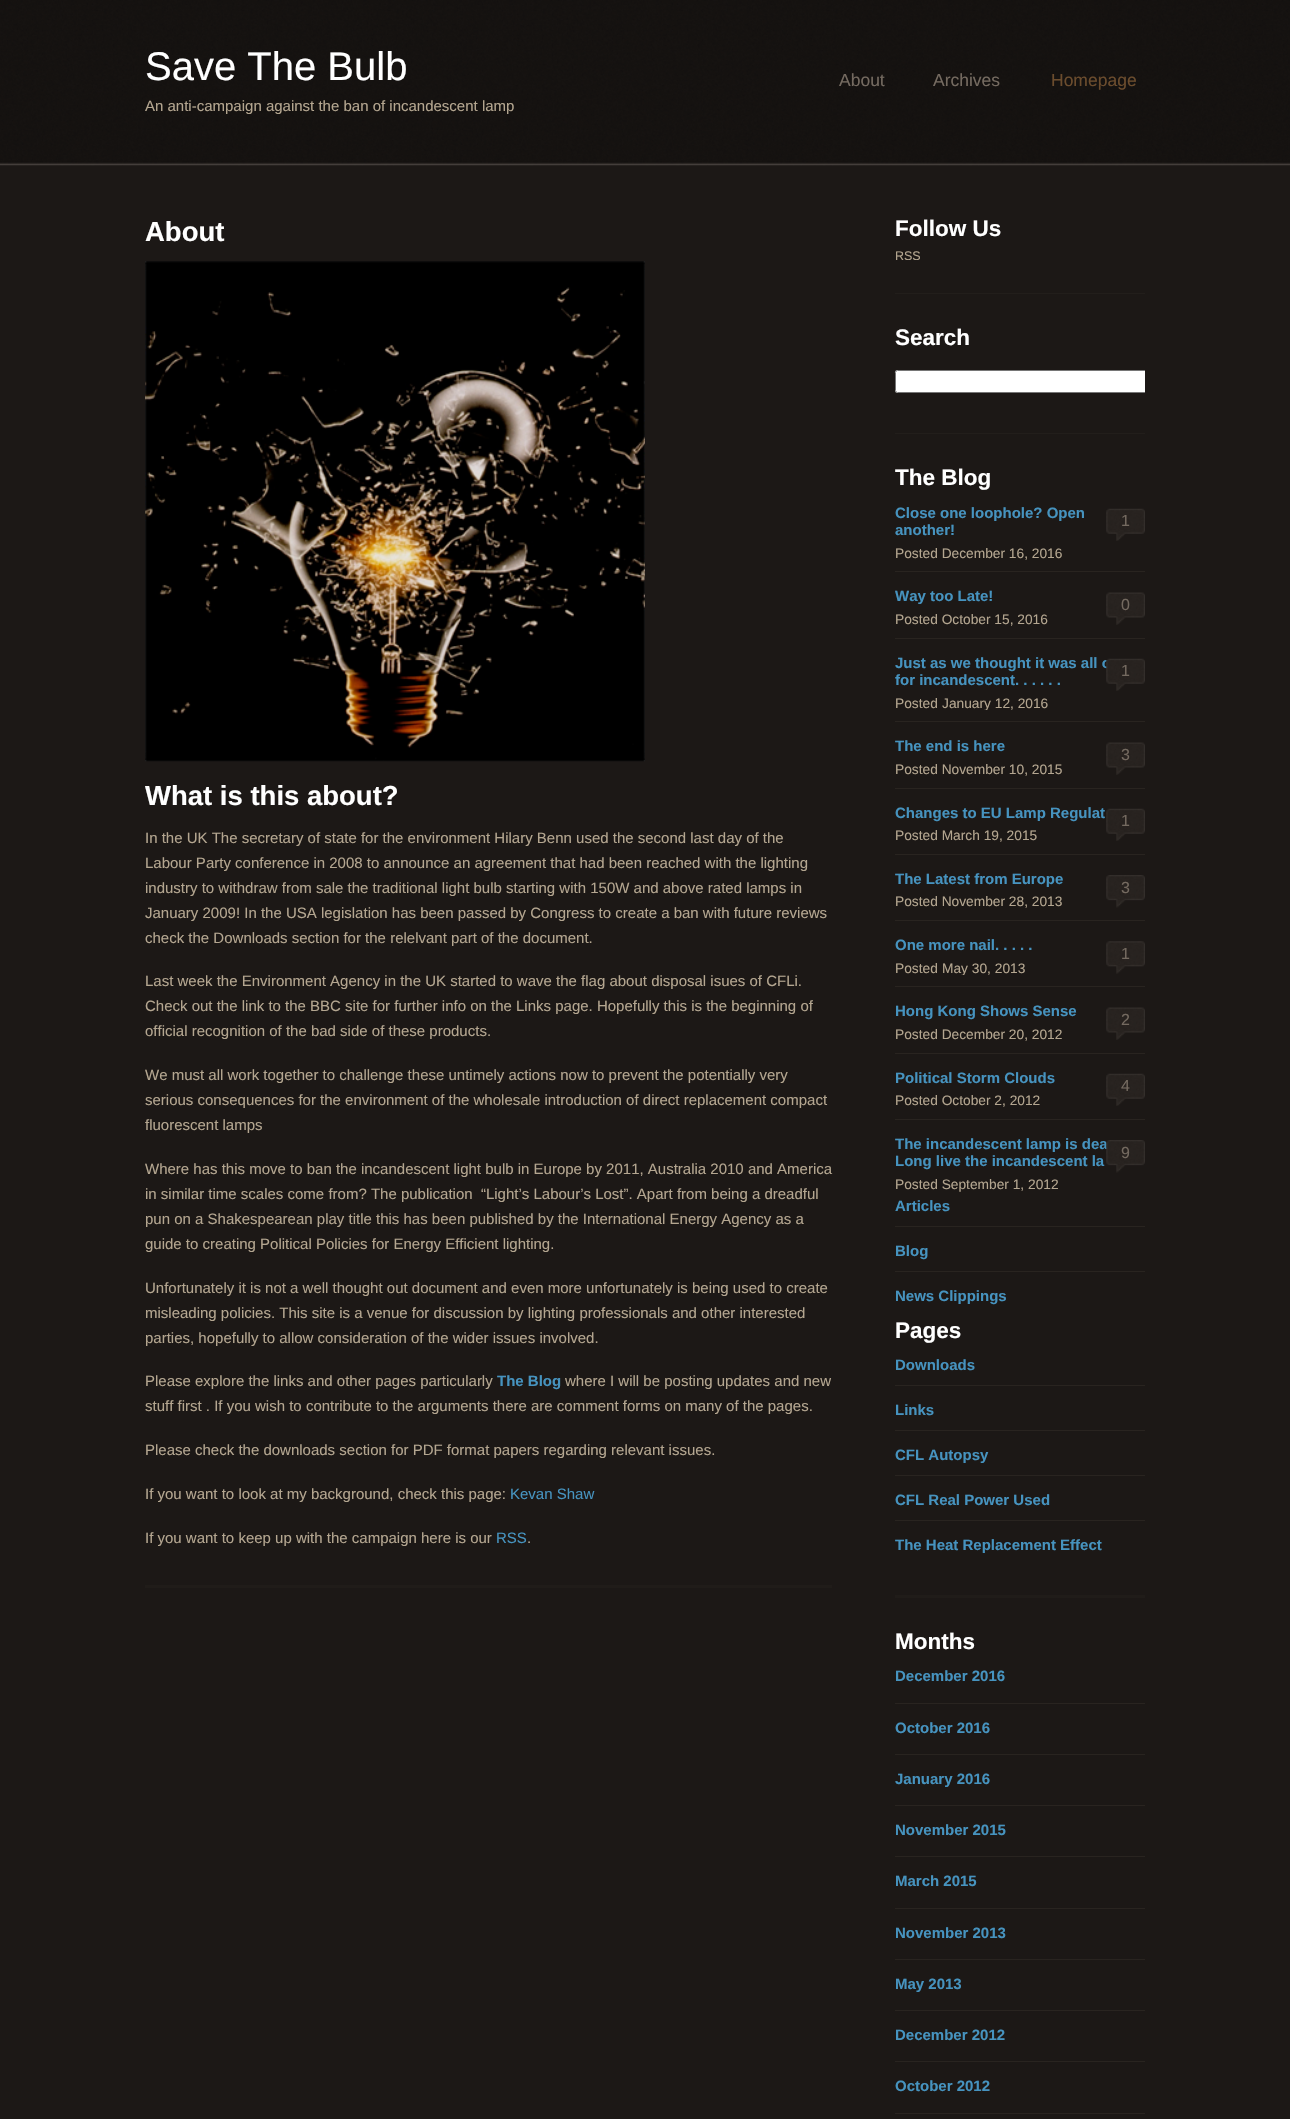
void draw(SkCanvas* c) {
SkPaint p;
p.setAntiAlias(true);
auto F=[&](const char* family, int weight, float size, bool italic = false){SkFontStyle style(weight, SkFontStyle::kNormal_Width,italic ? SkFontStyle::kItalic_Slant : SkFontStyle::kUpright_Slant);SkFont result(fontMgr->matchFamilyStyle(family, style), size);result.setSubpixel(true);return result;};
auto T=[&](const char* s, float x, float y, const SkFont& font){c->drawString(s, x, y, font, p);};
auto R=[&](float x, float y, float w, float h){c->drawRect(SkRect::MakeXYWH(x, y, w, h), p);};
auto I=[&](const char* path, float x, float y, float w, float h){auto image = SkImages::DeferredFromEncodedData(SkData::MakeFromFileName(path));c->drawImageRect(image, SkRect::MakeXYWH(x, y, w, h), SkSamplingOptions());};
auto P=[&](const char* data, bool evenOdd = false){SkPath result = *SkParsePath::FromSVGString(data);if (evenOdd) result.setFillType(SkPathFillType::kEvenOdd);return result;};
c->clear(0xff1c1816);
I("1.png",0,0,1290,166);
auto f1 = F("Liberation Sans",400,40);
p.setColor(0xffffffff);
T("Save The Bulb",145,80,f1);
auto f2 = F("Liberation Sans",400,15);
p.setColor(0xffb4a690);
T("An anti-campaign against the ban of incandescent lamp",145,111,f2);
auto f3 = F("Liberation Sans",400,17.5);
p.setColor(0xff746a60);
T("About",839,86,f3);
T("Archives",933,86,f3);
p.setColor(0xff6b4c2d);
T("Homepage",1051,86,f3);
p.setColor(0xff201c19);
R(145,1585,687,3);
auto f4 = F("Liberation Sans",700,27.5);
p.setColor(0xffffffff);
T("About",145,241,f4);
I("2.png",145,261,500,501);
T("What is this about?",145,805,f4);
p.setColor(0xffb4a690);
T("In the UK The secretary of state for the environment Hilary Benn used the second last day of the",145,843,f2);
T("Labour Party conference in 2008 to announce an agreement that had been reached with the lighting",145,868,f2);
T("industry to withdraw from sale the traditional light bulb starting with 150W and above rated lamps in",145,893,f2);
T("January 2009! In the USA legislation has been passed by Congress to create a ban with future reviews",145,918,f2);
T("check the Downloads section for the relelvant part of the document.",145,943,f2);
T("Last week the Environment Agency in the UK started to wave the flag about disposal isues of CFLi.",145,986,f2);
T("Check out the link to the BBC site for further info on the Links page. Hopefully this is the beginning of",145,1011,f2);
T("official recognition of the bad side of these products.",145,1036,f2);
T("We must all work together to challenge these untimely actions now to prevent the potentially very",145,1080,f2);
T("serious consequences for the environment of the wholesale introduction of direct replacement compact",145,1105,f2);
T("fluorescent lamps",145,1130,f2);
T("Where has this move to ban the incandescent light bulb in Europe by 2011, Australia 2010 and America",145,1174,f2);
T("in similar time scales come from? The publication  “Light’s Labour’s Lost”. Apart from being a dreadful",145,1199,f2);
T("pun on a Shakespearean play title this has been published by the International Energy Agency as a",145,1224,f2);
T("guide to creating Political Policies for Energy Efficient lighting.",145,1249,f2);
T("Unfortunately it is not a well thought out document and even more unfortunately is being used to create",145,1293,f2);
T("misleading policies. This site is a venue for discussion by lighting professionals and other interested",145,1318,f2);
T("parties, hopefully to allow consideration of the wider issues involved.",145,1343,f2);
T("Please explore the links and other pages particularly",145,1386,f2);
auto f5 = F("Liberation Sans",700,15);
p.setColor(0xff4693bf);
T("The Blog",497,1386,f5);
p.setColor(0xffb4a690);
T("where I will be posting updates and new",565,1386,f2);
T("stuff first . If you wish to contribute to the arguments there are comment forms on many of the pages.",145,1411,f2);
T("Please check the downloads section for PDF format papers regarding relevant issues.",145,1455,f2);
T("If you want to look at my background, check this page:",145,1499,f2);
p.setColor(0xff4693bf);
T("Kevan Shaw",510,1499,f2);
p.setColor(0xffb4a690);
T("If you want to keep up with the campaign here is our",145,1543,f2);
p.setColor(0xff4693bf);
T("RSS",496,1543,f2);
p.setColor(0xffb4a690);
T(".",527,1543,f2);
p.setColor(0xff221e1b);
R(895,293,250,1);
auto f6 = F("Liberation Sans",700,22.5);
p.setColor(0xffffffff);
T("Follow Us",895,236,f6);
auto f7 = F("Liberation Sans",400,12.5);
p.setColor(0xffb4a690);
T("RSS",895,260,f7);
p.setColor(0xff221e1b);
R(895,433,250,1);
p.setColor(0xffffffff);
T("Search",895,345,f6);
c->drawPath(P("M897.5 370h247.5v23h-247.5c-1.5 0-2.5-1-2.5-2.5v-18c0-1.5 1-2.5 2.5-2.5z"),p);
c->save();
c->clipRect(SkRect::MakeXYWH(895,370,250,33));
p.setStroke(true);
p.setStrokeWidth(1);
p.setColor(0xff767676);
c->drawRoundRect(SkRect::MakeXYWH(895.5,370.5,379,22),2,2,p);
c->restore();
p.setStroke(false);
p.setColor(0xff201c19);
R(895,1595,250,3);
p.setColor(0xffffffff);
T("The Blog",895,485,f6);
p.setColor(0xff4693bf);
T("Close one loophole? Open",895,518,f5);
T("another!",895,535,f5);
I("3.png",1106,508,39,33);
auto f8 = F("Liberation Sans",400,16);
p.setColor(0xff746a60);
T("1",1121,526,f8);
auto f9 = F("Liberation Sans",400,13.75);
p.setColor(0xffb4a690);
T("Posted December 16, 2016",895,558,f9);
p.setColor(0xff292420);
R(895,571,250,1);
p.setColor(0xff4693bf);
T("Way too Late!",895,601,f5);
I("4.png",1106,592,39,33);
p.setColor(0xff746a60);
T("0",1121,610,f8);
p.setColor(0xffb4a690);
T("Posted October 15, 2016",895,624,f9);
p.setColor(0xff292420);
R(895,638,250,1);
p.setColor(0xff4693bf);
T("Just as we thought it was all o",895,668,f5);
T("for incandescent. . . . . .",895,685,f5);
I("5.png",1106,658,39,33);
p.setColor(0xff746a60);
T("1",1121,676,f8);
p.setColor(0xffb4a690);
T("Posted",895,708,f9);
c->save();
c->clipRect(SkRect::MakeXYWH(895,639,250,71));
T("January 12, 2016",942,708,f9);
c->restore();
p.setColor(0xff292420);
R(895,721,250,1);
p.setColor(0xff4693bf);
T("The end is here",895,751,f5);
I("4.png",1106,742,39,33);
p.setColor(0xff746a60);
T("3",1121,760,f8);
p.setColor(0xffb4a690);
T("Posted November 10, 2015",895,774,f9);
p.setColor(0xff292420);
R(895,788,250,1);
p.setColor(0xff4693bf);
T("Changes to EU Lamp Regulat",895,818,f5);
I("6.png",1106,808,39,33);
p.setColor(0xff746a60);
T("1",1121,826,f8);
p.setColor(0xffb4a690);
T("Posted March 19, 2015",895,840,f9);
p.setColor(0xff292420);
R(895,854,250,1);
p.setColor(0xff4693bf);
T("The Latest from Europe",895,884,f5);
I("7.png",1106,875,39,33);
p.setColor(0xff746a60);
T("3",1121,893,f8);
p.setColor(0xffb4a690);
T("Posted November 28, 2013",895,906,f9);
p.setColor(0xff292420);
R(895,920,250,1);
p.setColor(0xff4693bf);
T("One more nail. . . . .",895,950,f5);
I("8.png",1106,941,39,33);
p.setColor(0xff746a60);
T("1",1121,959,f8);
p.setColor(0xffb4a690);
T("Posted",895,973,f9);
c->save();
c->clipRect(SkRect::MakeXYWH(895,921,250,54));
T("May 30, 2013",942,973,f9);
c->restore();
p.setColor(0xff292420);
R(895,986,250,1);
p.setColor(0xff4693bf);
T("Hong Kong Shows Sense",895,1016,f5);
I("4.png",1106,1007,39,33);
p.setColor(0xff746a60);
T("2",1121,1025,f8);
p.setColor(0xffb4a690);
T("Posted December 20, 2012",895,1039,f9);
p.setColor(0xff292420);
R(895,1053,250,1);
p.setColor(0xff4693bf);
T("Political Storm Clouds",895,1083,f5);
I("3.png",1106,1073,39,33);
p.setColor(0xff746a60);
T("4",1121,1091,f8);
p.setColor(0xffb4a690);
T("Posted October 2, 2012",895,1105,f9);
p.setColor(0xff292420);
R(895,1119,250,1);
p.setColor(0xff4693bf);
T("The incandescent lamp is dea",895,1149,f5);
T("Long live the incandescent la",895,1166,f5);
I("9.png",1106,1140,39,33);
p.setColor(0xff746a60);
T("9",1121,1158,f8);
p.setColor(0xffb4a690);
T("Posted September 1, 2012",895,1189,f9);
p.setColor(0xff4693bf);
T("Articles",895,1211,f5);
p.setColor(0xff292420);
R(895,1226,250,1);
p.setColor(0xff4693bf);
T("Blog",895,1256,f5);
p.setColor(0xff292420);
R(895,1271,250,1);
p.setColor(0xff4693bf);
T("News Clippings",895,1301,f5);
p.setColor(0xffffffff);
T("Pages",895,1338,f6);
p.setColor(0xff4693bf);
T("Downloads",895,1370,f5);
p.setColor(0xff292420);
R(895,1385,250,1);
p.setColor(0xff4693bf);
T("Links",895,1415,f5);
p.setColor(0xff292420);
R(895,1430,250,1);
p.setColor(0xff4693bf);
T("CFL Autopsy",895,1460,f5);
p.setColor(0xff292420);
R(895,1475,250,1);
p.setColor(0xff4693bf);
T("CFL Real Power Used",895,1505,f5);
p.setColor(0xff292420);
R(895,1520,250,1);
p.setColor(0xff4693bf);
T("The Heat Replacement Effect",895,1550,f5);
p.setColor(0xffffffff);
T("Months",895,1649,f6);
p.setColor(0xff4693bf);
T("December 2016",895,1681,f5);
p.setColor(0xff292420);
R(895,1703,250,1);
p.setColor(0xff4693bf);
T("October 2016",895,1733,f5);
p.setColor(0xff292420);
R(895,1754,250,1);
p.setColor(0xff4693bf);
T("January 2016",895,1784,f5);
p.setColor(0xff292420);
R(895,1805,250,1);
p.setColor(0xff4693bf);
T("November 2015",895,1835,f5);
p.setColor(0xff292420);
R(895,1856,250,1);
p.setColor(0xff4693bf);
T("March 2015",895,1886,f5);
p.setColor(0xff292420);
R(895,1908,250,1);
p.setColor(0xff4693bf);
T("November 2013",895,1938,f5);
p.setColor(0xff292420);
R(895,1959,250,1);
p.setColor(0xff4693bf);
T("May 2013",895,1989,f5);
p.setColor(0xff292420);
R(895,2010,250,1);
p.setColor(0xff4693bf);
T("December 2012",895,2040,f5);
p.setColor(0xff292420);
R(895,2061,250,1);
p.setColor(0xff4693bf);
T("October 2012",895,2091,f5);
p.setColor(0xff292420);
R(895,2113,250,1);
}
